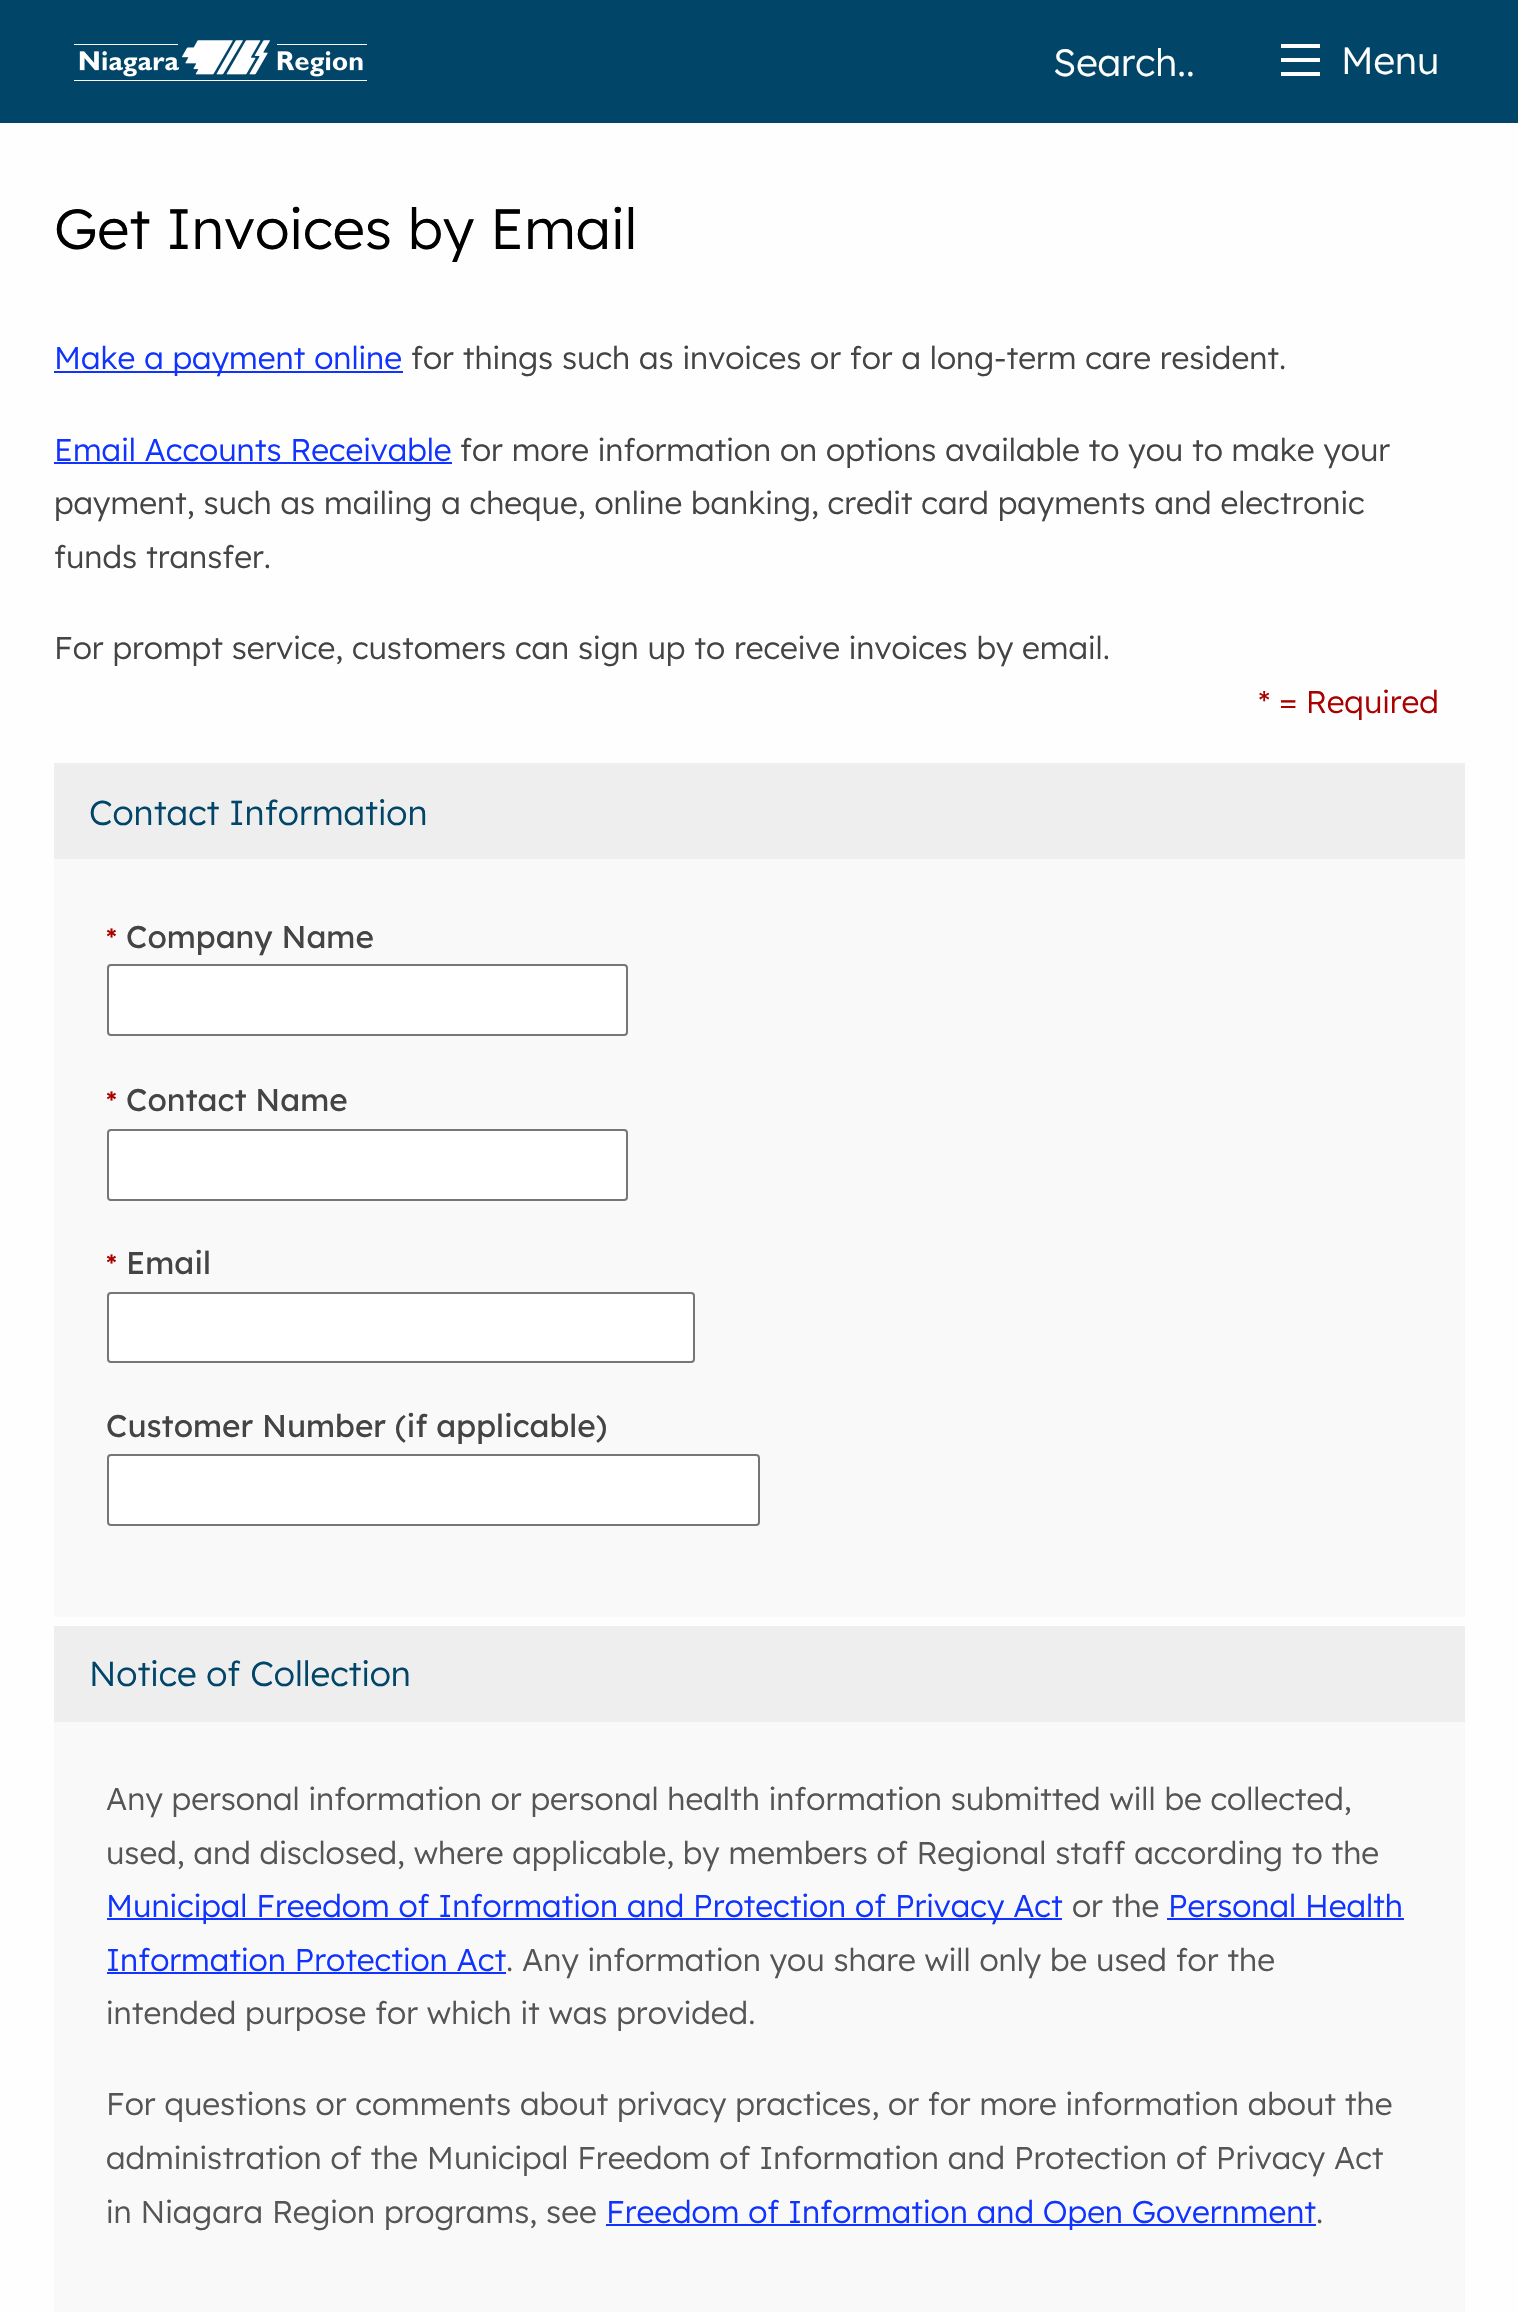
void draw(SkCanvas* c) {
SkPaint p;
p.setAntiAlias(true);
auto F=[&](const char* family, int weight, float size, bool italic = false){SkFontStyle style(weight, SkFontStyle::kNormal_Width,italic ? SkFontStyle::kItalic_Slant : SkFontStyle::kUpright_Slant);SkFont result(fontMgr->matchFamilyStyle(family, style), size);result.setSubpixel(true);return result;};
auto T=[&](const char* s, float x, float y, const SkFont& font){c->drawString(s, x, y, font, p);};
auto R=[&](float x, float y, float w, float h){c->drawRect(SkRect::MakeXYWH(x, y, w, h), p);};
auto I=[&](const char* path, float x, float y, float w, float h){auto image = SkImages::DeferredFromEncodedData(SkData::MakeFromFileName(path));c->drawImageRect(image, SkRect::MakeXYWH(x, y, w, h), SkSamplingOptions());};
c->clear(0xfffefefe);
p.setColor(0xff014568);
R(0,0,1518,123);
I("1.png",74,40,293,41);
auto f1 = F("Lexend",400,38);
p.setColor(0xffffffff);
T("Search..",1053,76,f1);
R(1281,44,39,4);
R(1281,58,39,4);
T("Menu",1341,74,f1);
R(1281,72,39,4);
auto f2 = F("Lexend",400,56.75);
p.setColor(0xff000000);
T("Get Invoices by Email",54,249,f2);
p.setColor(0xff1133ff);
R(54,371,349,2);
auto f3 = F("Lexend",400,31.5);
T("Make a payment online",54,369,f3);
p.setColor(0xff444444);
T("for things such as invoices or for a long-term care resident.",411,369,f3);
p.setColor(0xff1133ff);
T("Email Accounts Receivable",54,461,f3);
R(54,462,398,2);
p.setColor(0xff444444);
T("for more information on options available to you to make your",460,461,f3);
T("payment, such as mailing a cheque, online banking, credit card payments and electronic",54,514,f3);
T("funds transfer.",54,568,f3);
T("For prompt service, customers can sign up to receive invoices by email.",54,659,f3);
p.setColor(0xffaa0000);
T("* = Required",1258,713,f3);
p.setColor(0xfff9f9f9);
R(54,859,1411,758);
p.setColor(0xffeeeeee);
R(54,763,1411,96);
auto f4 = F("Lexend",400,34.75);
p.setColor(0xff014568);
T("Contact Information",89,825,f4);
auto f5 = F("Lexend",500,28);
p.setColor(0xffaa0000);
T("*",106,948,f5);
auto f6 = F("Lexend",500,31.5);
p.setColor(0xff444444);
T("Company Name",126,948,f6);
p.setColor(0xffffffff);
c->drawRoundRect(SkRect::MakeXYWH(108,965,519,70),3,3,p);
p.setStroke(true);
p.setStrokeWidth(2);
p.setColor(0xff767676);
c->drawRoundRect(SkRect::MakeXYWH(108,965,519,70),3,3,p);
p.setStroke(false);
p.setColor(0xffaa0000);
T("*",106,1111,f5);
p.setColor(0xff444444);
T("Contact Name",126,1111,f6);
p.setColor(0xffffffff);
c->drawRoundRect(SkRect::MakeXYWH(108,1130,519,70),3,3,p);
p.setStroke(true);
p.setColor(0xff767676);
c->drawRoundRect(SkRect::MakeXYWH(108,1130,519,70),3,3,p);
p.setStroke(false);
p.setColor(0xffaa0000);
T("*",106,1274,f5);
p.setColor(0xff444444);
T("Email",126,1274,f6);
p.setColor(0xffffffff);
c->drawRoundRect(SkRect::MakeXYWH(108,1293,586,69),3,3,p);
p.setStroke(true);
p.setColor(0xff767676);
c->drawRoundRect(SkRect::MakeXYWH(108,1293,586,69),3,3,p);
p.setStroke(false);
p.setColor(0xff444444);
T("Customer Number (if applicable)",106,1437,f6);
p.setColor(0xffffffff);
c->drawRoundRect(SkRect::MakeXYWH(108,1455,651,70),3,3,p);
p.setStroke(true);
p.setColor(0xff767676);
c->drawRoundRect(SkRect::MakeXYWH(108,1455,651,70),3,3,p);
p.setStroke(false);
p.setColor(0xfff9f9f9);
R(54,1722,1411,590);
p.setColor(0xffeeeeee);
R(54,1626,1411,96);
p.setColor(0xff014568);
T("Notice of Collection",89,1686,f4);
p.setColor(0xff555555);
T("Any personal information or personal health information submitted will be collected,",106,1810,f3);
T("used, and disclosed, where applicable, by members of Regional staff according to the",106,1864,f3);
p.setColor(0xff1133ff);
R(107,1918,955,2);
T("Municipal Freedom of Information and Protection of Privacy Act",106,1917,f3);
p.setColor(0xff555555);
T("or the",1072,1917,f3);
p.setColor(0xff1133ff);
T("Personal Health",1168,1917,f3);
R(1167,1918,237,2);
T("Information Protection Act",106,1971,f3);
R(107,1972,399,2);
p.setColor(0xff555555);
T(". Any information you share will only be used for the",506,1971,f3);
T("intended purpose for which it was provided.",106,2024,f3);
T("For questions or comments about privacy practices, or for more information about the",106,2115,f3);
T("administration of the Municipal Freedom of Information and Protection of Privacy Act",106,2169,f3);
T("in Niagara Region programs, see",106,2223,f3);
p.setColor(0xff1133ff);
R(606,2224,710,2);
T("Freedom of Information and Open Government",606,2223,f3);
p.setColor(0xff555555);
T(".",1316,2223,f3);
}
